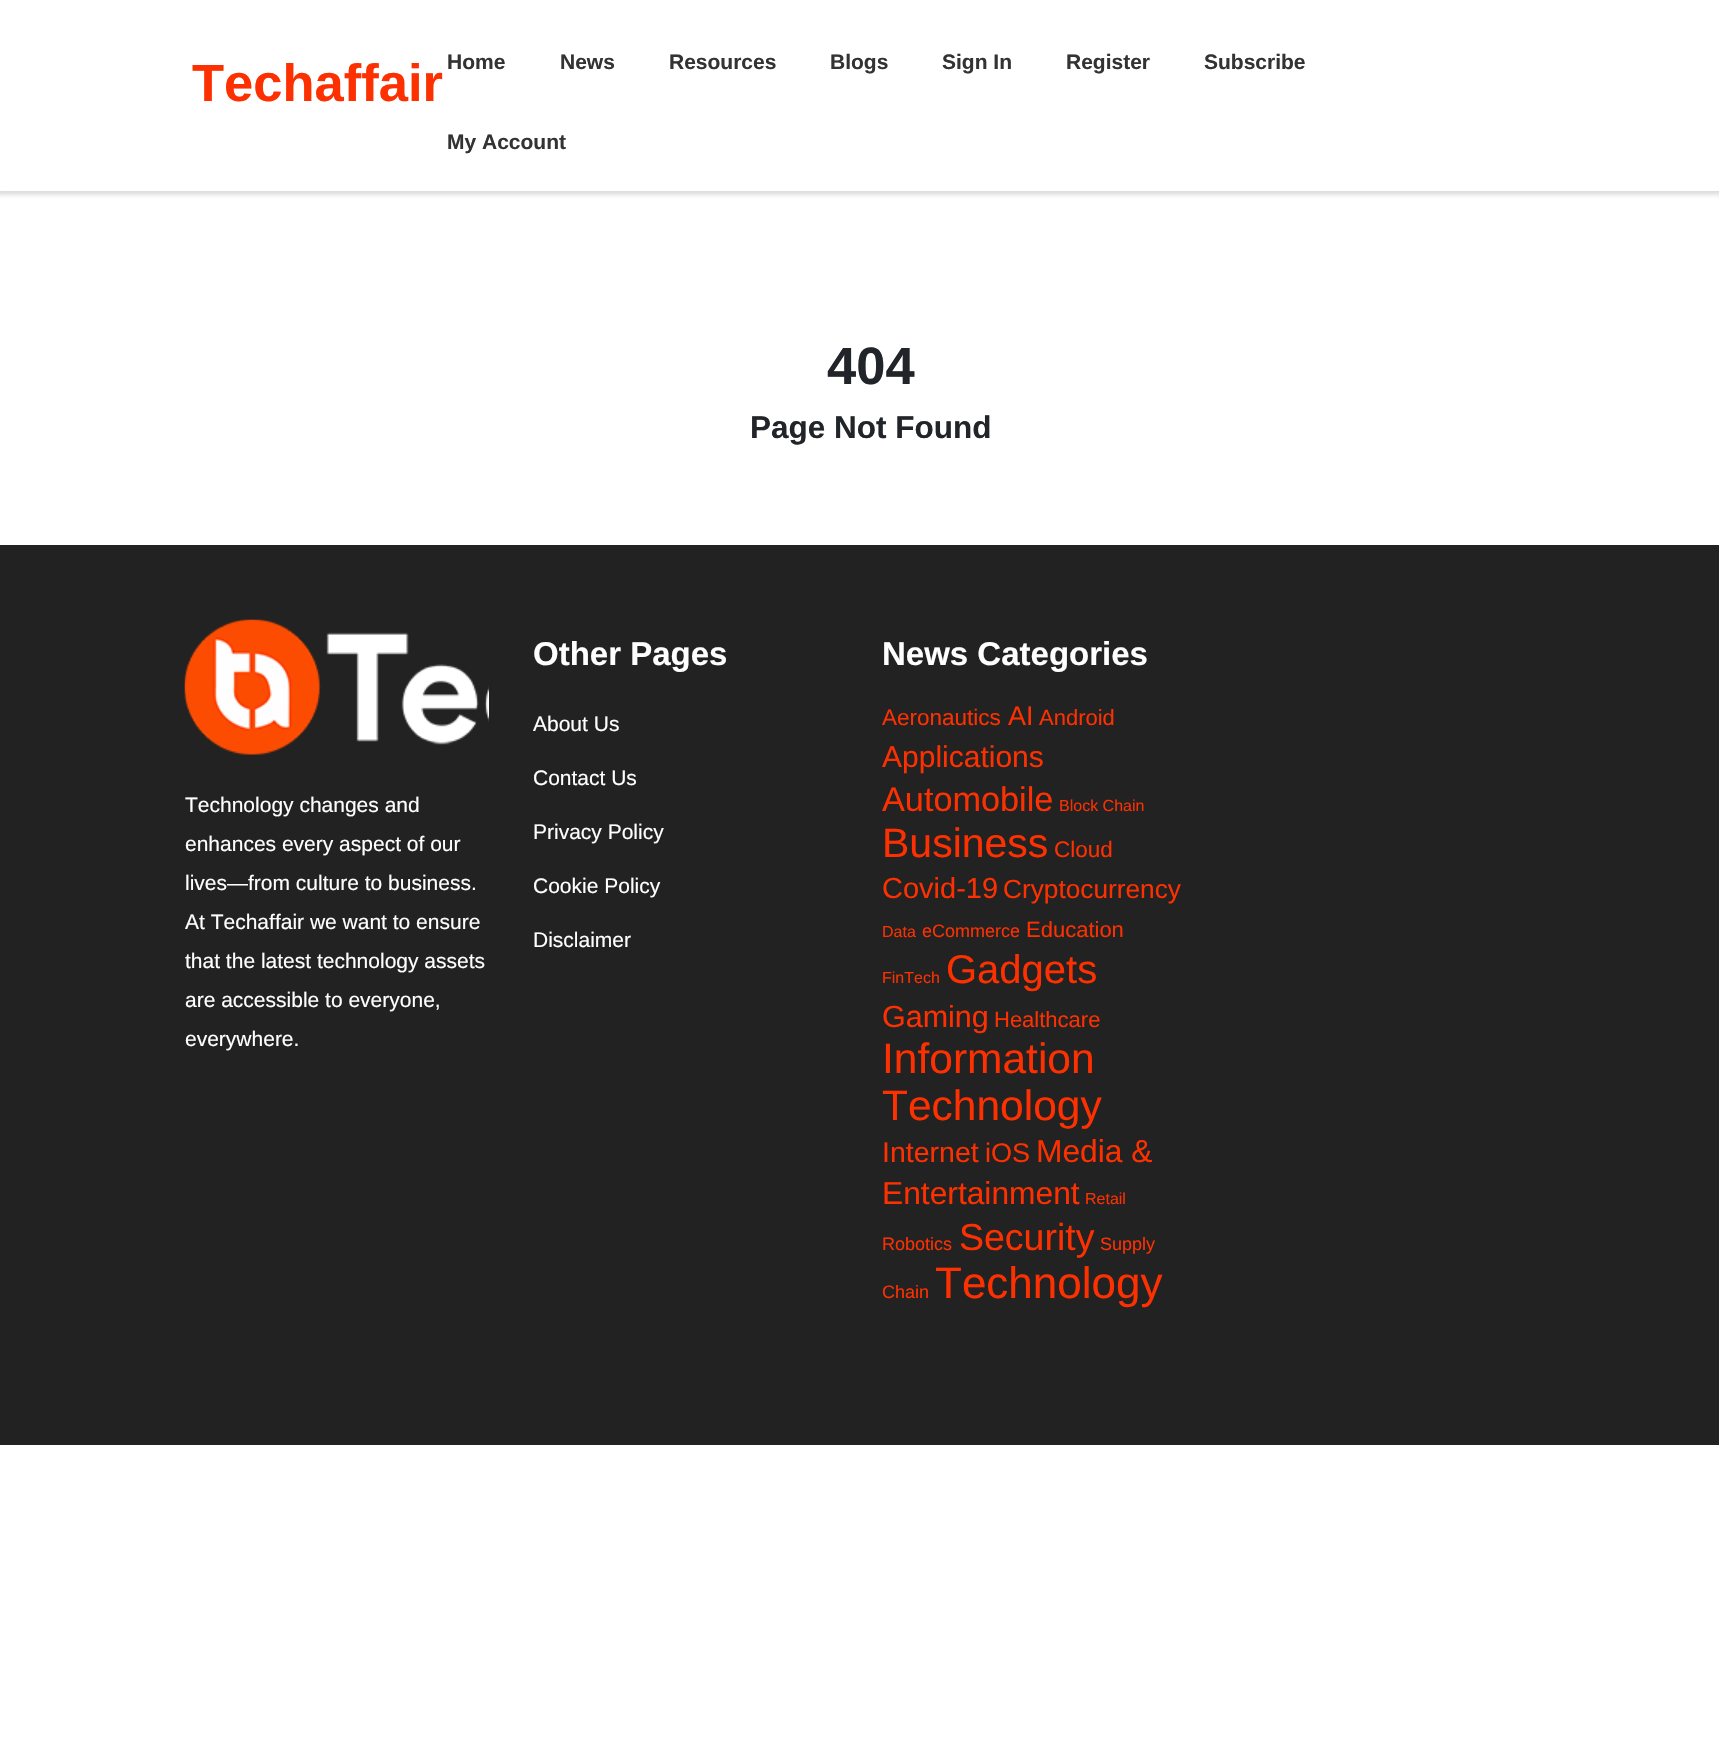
void draw(SkCanvas* c) {
SkPaint p;
p.setAntiAlias(true);
auto F=[&](const char* family, int weight, float size, bool italic = false){SkFontStyle style(weight, SkFontStyle::kNormal_Width,italic ? SkFontStyle::kItalic_Slant : SkFontStyle::kUpright_Slant);SkFont result(fontMgr->matchFamilyStyle(family, style), size);result.setSubpixel(true);return result;};
auto T=[&](const char* s, float x, float y, const SkFont& font){c->drawString(s, x, y, font, p);};
auto R=[&](float x, float y, float w, float h){c->drawRect(SkRect::MakeXYWH(x, y, w, h), p);};
auto I=[&](const char* path, float x, float y, float w, float h){auto image = SkImages::DeferredFromEncodedData(SkData::MakeFromFileName(path));c->drawImageRect(image, SkRect::MakeXYWH(x, y, w, h), SkSamplingOptions());};
auto P=[&](const char* data, bool evenOdd = false){SkPath result = *SkParsePath::FromSVGString(data);if (evenOdd) result.setFillType(SkPathFillType::kEvenOdd);return result;};
c->clear(0xffffffff);
c->save();
c->clipPath(P("M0 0h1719v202h-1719zm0 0h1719v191h-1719z",true),true);
p.setColor(0x40777a72);
p.setMaskFilter(SkMaskFilter::MakeBlur(kNormal_SkBlurStyle, 2));
c->drawRect(SkRect::MakeXYWH(-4,-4,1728,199),p);
p.setMaskFilter(nullptr);
c->restore();
auto f1 = F("Liberation Sans",700,52.5);
p.setColor(0xfffc3000);
T("Techaffair",192,101,f1);
auto f2 = F("Liberation Sans",700,21);
p.setColor(0xff333333);
T("Home",447,69,f2);
T("News",560,69,f2);
T("Resources",669,69,f2);
T("Blogs",830,69,f2);
T("Sign In",942,69,f2);
T("Register",1066,69,f2);
T("Subscribe",1204,69,f2);
T("My Account",447,149,f2);
p.setColor(0xff212529);
T("404",827,384,f1);
auto f3 = F("Liberation Sans",700,31.5);
T("Page Not Found",750,438,f3);
p.setColor(0xff222222);
R(0,545,1719,900);
I("1.png",184,619,305,136);
auto f4 = F("Liberation Sans",400,21);
p.setColor(0xffffffff);
T("Technology changes and",185,812,f4);
T("enhances every aspect of our",185,851,f4);
T("lives—from culture to business.",185,890,f4);
T("At Techaffair we want to ensure",185,929,f4);
T("that the latest technology assets",185,968,f4);
T("are accessible to everyone,",185,1007,f4);
T("everywhere.",185,1046,f4);
auto f5 = F("Liberation Sans",700,33);
T("Other Pages",533,665,f5);
T("About Us",533,731,f4);
T("Contact Us",533,785,f4);
T("Privacy Policy",533,839,f4);
T("Cookie Policy",533,893,f4);
T("Disclaimer",533,947,f4);
T("News Categories",882,665,f5);
auto f6 = F("Liberation Sans",400,22.5);
p.setColor(0xfffc3000);
T("Aeronautics",882,725,f6);
auto f7 = F("Liberation Sans",400,27);
T("AI",1008,725,f7);
auto f8 = F("Liberation Sans",400,22);
T("Android",1039,725,f8);
auto f9 = F("Liberation Sans",400,30);
T("Applications",882,767,f9);
auto f10 = F("Liberation Sans",400,34.25);
T("Automobile",882,811,f10);
auto f11 = F("Liberation Sans",400,16);
T("Block Chain",1059,811,f11);
auto f12 = F("Liberation Sans",400,41);
T("Business",882,857,f12);
T("Cloud",1054,857,f6);
auto f13 = F("Liberation Sans",400,29);
T("Covid-19",882,898,f13);
auto f14 = F("Liberation Sans",400,26.25);
T("Cryptocurrency",1003,898,f14);
T("Data",882,937,f11);
auto f15 = F("Liberation Sans",400,18);
T("eCommerce",922,937,f15);
T("Education",1026,937,f8);
T("FinTech",882,983,f11);
auto f16 = F("Liberation Sans",400,40);
T("Gadgets",946,983,f16);
auto f17 = F("Liberation Sans",400,30.5);
T("Gaming",882,1027,f17);
T("Healthcare",994,1027,f8);
auto f18 = F("Liberation Sans",400,42.5);
T("Information",882,1073,f18);
T("Technology",882,1120,f18);
auto f19 = F("Liberation Sans",400,28.5);
T("Internet",882,1162,f19);
T("iOS",985,1162,f7);
auto f20 = F("Liberation Sans",400,31.75);
T("Media &",1036,1162,f20);
T("Entertainment",882,1204,f20);
T("Retail",1085,1204,f11);
T("Robotics",882,1250,f15);
auto f21 = F("Liberation Sans",400,37.5);
T("Security",959,1250,f21);
T("Supply",1100,1250,f15);
T("Chain",882,1298,f15);
auto f22 = F("Liberation Sans",400,44);
T("Technology",935,1298,f22);
}
